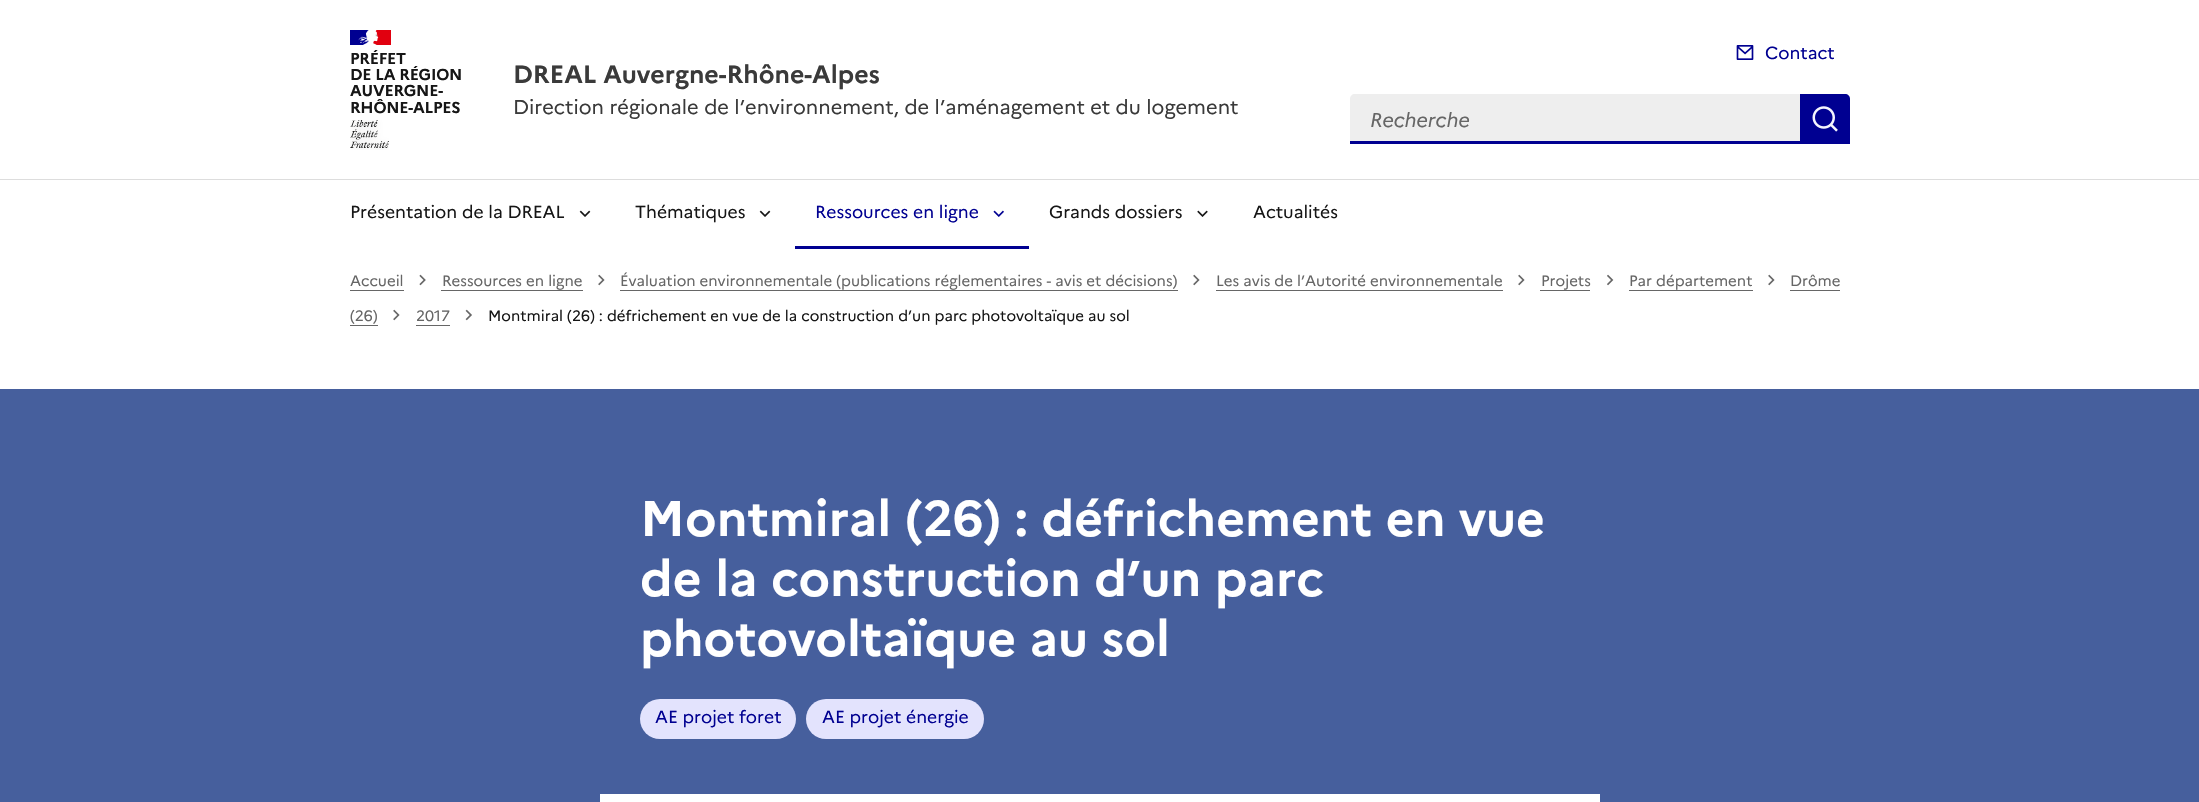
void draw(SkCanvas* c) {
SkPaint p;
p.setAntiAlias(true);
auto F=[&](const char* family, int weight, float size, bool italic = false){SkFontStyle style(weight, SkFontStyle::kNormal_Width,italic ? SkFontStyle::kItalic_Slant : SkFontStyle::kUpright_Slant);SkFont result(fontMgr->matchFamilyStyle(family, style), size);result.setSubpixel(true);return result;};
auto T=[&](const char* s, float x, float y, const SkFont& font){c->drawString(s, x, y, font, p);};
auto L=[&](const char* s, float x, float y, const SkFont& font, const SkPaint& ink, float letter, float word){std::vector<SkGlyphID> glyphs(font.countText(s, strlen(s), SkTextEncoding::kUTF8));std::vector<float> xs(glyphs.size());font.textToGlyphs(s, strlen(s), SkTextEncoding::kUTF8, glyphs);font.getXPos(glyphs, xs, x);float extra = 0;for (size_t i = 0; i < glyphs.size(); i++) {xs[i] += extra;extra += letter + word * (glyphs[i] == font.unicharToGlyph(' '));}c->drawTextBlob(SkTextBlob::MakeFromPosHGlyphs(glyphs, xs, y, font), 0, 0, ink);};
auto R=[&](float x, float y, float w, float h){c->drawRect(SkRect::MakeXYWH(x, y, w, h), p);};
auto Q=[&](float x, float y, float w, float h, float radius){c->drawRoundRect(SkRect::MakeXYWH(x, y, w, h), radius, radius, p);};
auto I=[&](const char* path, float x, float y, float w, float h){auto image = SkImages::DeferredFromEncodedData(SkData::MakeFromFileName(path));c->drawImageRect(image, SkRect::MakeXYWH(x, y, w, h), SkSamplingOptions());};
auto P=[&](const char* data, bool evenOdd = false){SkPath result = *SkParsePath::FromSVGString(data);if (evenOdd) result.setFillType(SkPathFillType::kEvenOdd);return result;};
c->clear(0xffffffff);
p.setColor(0xff000091);
R(350,30,19,15);
p.setColor(0xffe1000f);
R(373,30,18,15);
I("1.png",358,30,21,15);
auto f1 = F("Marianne",700,15.75);
p.setColor(0xff161616);
L("PRÉFET",350,64,f1,p,-.2,0);
L("DE LA RÉGION",350,80,f1,p,-.2,0);
L("AUVERGNE-",350,96,f1,p,-.2,0);
L("RHÔNE-ALPES",350,113,f1,p,-.2,0);
I("2.png",350,120,39,30);
auto f2 = F("Marianne",700,25);
p.setColor(0xff3a3a3a);
T("DREAL Auvergne-Rhône-Alpes",513,83,f2);
auto f3 = F("Marianne",400,20);
T("Direction régionale de l’environnement, de l’aménagement et du logement",513,114,f3);
I("3.png",1736,45,18,15);
auto f4 = F("Marianne",400,17.5);
p.setColor(0xff000091);
T("Contact",1765,59,f4);
p.setColor(0xffeeeeee);
c->drawPath(P("M1355 94h445v50h-450v-45c0-3 2-5 5-5z"),p);
p.setColor(0xff000091);
R(1350,141,450,3);
auto f5 = F("Marianne",400,20,true);
p.setColor(0xff666666);
T("Recherche",1370,127,f5);
p.setColor(0xff000091);
c->drawPath(P("M1800 94h45c3 0 5 2 5 5v45h-50z"),p);
I("4.png",1812,106,26,26);
p.setColor(0xffdddddd);
R(0,179,2199,1);
p.setColor(0xff161616);
T("Présentation de la DREAL",350,218,f4);
I("5.png",579,210,12,7);
T("Thématiques",635,218,f4);
I("5.png",759,210,12,7);
p.setColor(0xff000091);
T("Ressources en ligne",815,218,f4);
I("6.png",993,210,11,7);
R(795,246,234,3);
p.setColor(0xff161616);
T("Grands dossiers",1049,218,f4);
I("7.png",1197,210,11,7);
T("Actualités",1253,218,f4);
auto f6 = F("Marianne",400,15);
p.setColor(0xff666666);
T("Accueil",350,286,f6);
R(350,290,54,1);
I("8.png",598,274,7,12);
T("Évaluation environnementale (publications réglementaires - avis et décisions)",620,286,f6);
R(620,290,558,1);
I("8.png",1768,274,7,12);
T("Drôme",1790,286,f6);
R(1790,290,50,1);
T("(26)",350,321,f6);
R(350,325,28,1);
I("9.png",419,274,7,12);
T("Ressources en ligne",442,286,f6);
R(441,290,142,1);
I("8.png",1193,274,7,12);
T("Les avis de l’Autorité environnementale",1216,286,f6);
R(1216,290,287,1);
I("8.png",1518,274,7,12);
T("Projets",1541,286,f6);
R(1540,290,50,1);
I("10.png",1607,274,7,12);
T("Par département",1629,286,f6);
R(1629,290,124,1);
I("8.png",393,309,7,12);
T("2017",416,321,f6);
R(416,325,34,1);
I("11.png",465,309,7,12);
p.setColor(0xff161616);
T("Montmiral (26) : défrichement en vue de la construction d’un parc photovoltaïque au sol",488,321,f6);
p.setColor(0xff465f9d);
R(0,389,2199,413);
auto f7 = F("Marianne",700,50);
p.setColor(0xffffffff);
T("Montmiral (26) : défrichement en vue",640,536,f7);
T("de la construction d’un parc",640,596,f7);
T("photovoltaïque au sol",640,656,f7);
p.setColor(0xffe3e3fd);
Q(640,699,156,40,20);
p.setColor(0xff000091);
T("AE projet foret",655,723,f4);
p.setColor(0xffe3e3fd);
Q(806,699,178,40,20);
p.setColor(0xff000091);
T("AE projet énergie",822,723,f4);
p.setColor(0xffffffff);
R(600,794,1000,8);
}
